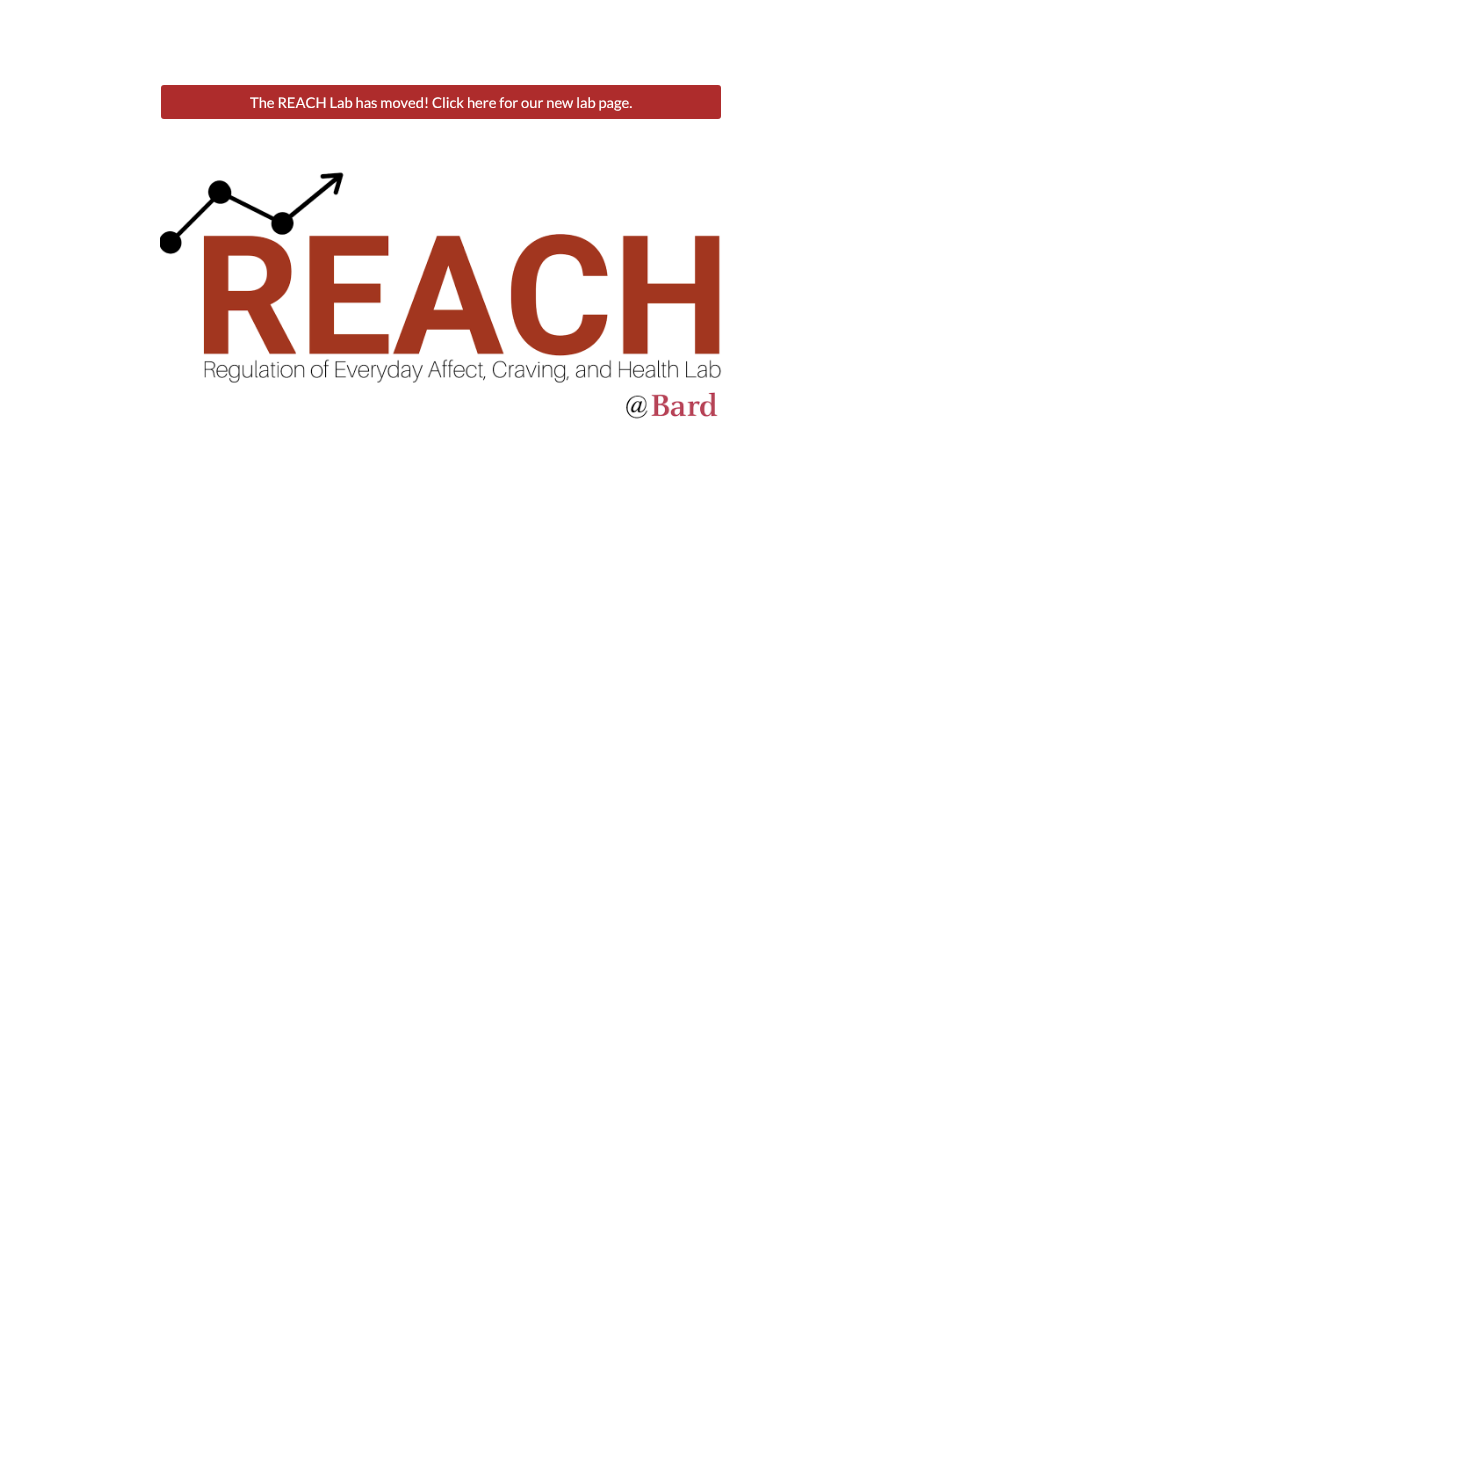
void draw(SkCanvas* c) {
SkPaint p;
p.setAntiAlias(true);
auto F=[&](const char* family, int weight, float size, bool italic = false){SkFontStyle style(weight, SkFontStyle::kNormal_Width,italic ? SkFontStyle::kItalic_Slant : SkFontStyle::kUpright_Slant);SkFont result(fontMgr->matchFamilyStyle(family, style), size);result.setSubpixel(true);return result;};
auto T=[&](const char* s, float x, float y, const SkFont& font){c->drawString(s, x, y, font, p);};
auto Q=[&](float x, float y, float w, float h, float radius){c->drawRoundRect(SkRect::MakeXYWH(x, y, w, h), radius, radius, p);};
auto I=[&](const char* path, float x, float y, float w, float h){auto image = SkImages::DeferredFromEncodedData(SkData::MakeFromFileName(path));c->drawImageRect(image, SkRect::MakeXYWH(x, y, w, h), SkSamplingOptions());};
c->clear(0xffffffff);
p.setColor(0xffae2c2c);
Q(161,85,560,34,3);
auto f1 = F("Lato",400,14.7);
p.setColor(0xffffffff);
T("The REACH Lab has moved! Click here for our new lab page.",250,108,f1);
I("1.png",160,172,562,247);
}
